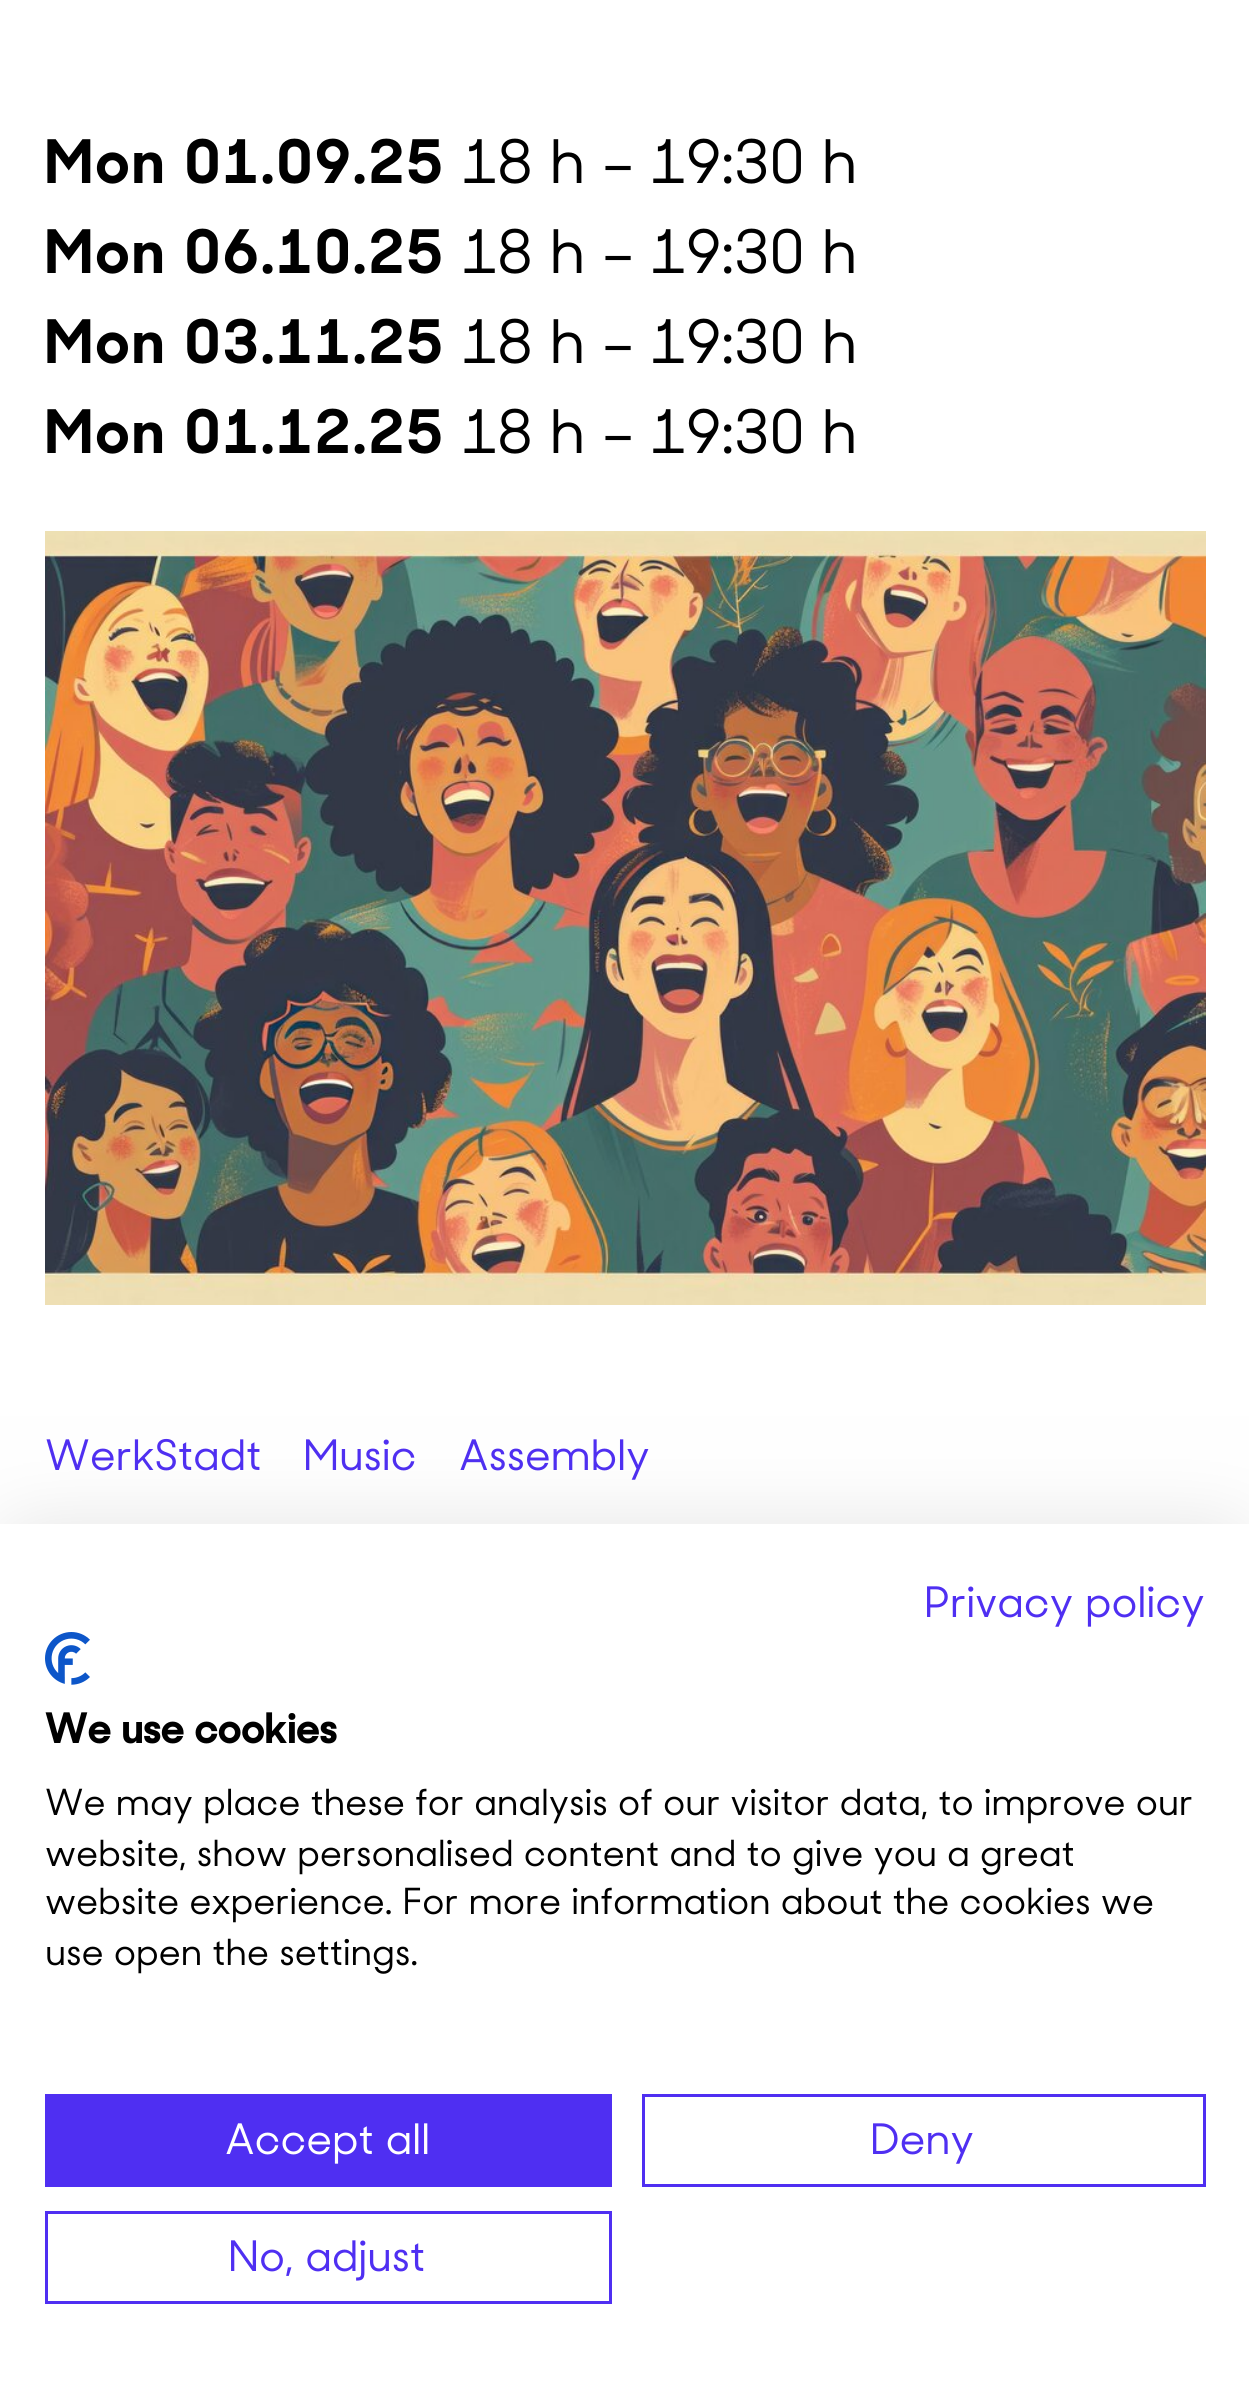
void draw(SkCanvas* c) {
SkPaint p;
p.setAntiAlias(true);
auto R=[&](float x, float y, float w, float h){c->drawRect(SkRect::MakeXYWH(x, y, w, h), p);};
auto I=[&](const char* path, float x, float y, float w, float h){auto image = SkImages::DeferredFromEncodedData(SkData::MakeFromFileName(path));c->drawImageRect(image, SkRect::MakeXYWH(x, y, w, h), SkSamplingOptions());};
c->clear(0xffffffff);
I("1.png",47,138,394,46);
I("2.png",464,138,390,46);
I("3.png",47,228,394,46);
I("2.png",464,228,390,46);
I("4.png",47,318,394,46);
I("2.png",464,318,390,46);
I("5.png",47,408,394,46);
I("2.png",464,408,390,46);
I("6.png",45,531,1161,774);
I("7.png",46,1438,214,33);
I("8.png",306,1439,109,32);
I("9.png",460,1439,189,41);
p.setColor(0x1a000000);
p.setMaskFilter(SkMaskFilter::MakeBlur(kNormal_SkBlurStyle, 36));
c->drawRect(SkRect::MakeXYWH(0,1524,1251,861),p);
p.setMaskFilter(nullptr);
p.setColor(0xffffffff);
R(0,1524,1249,860);
I("10.png",927,1586,277,41);
I("11.png",45,1632,45,53);
I("12.png",45,1712,292,32);
I("13.png",46,1788,1146,36);
I("14.png",46,1839,1027,36);
I("15.png",46,1887,1107,36);
I("16.png",47,1938,370,36);
p.setColor(0xff4f2ff2);
R(45,2094,567,93);
I("17.png",226,2123,202,41);
p.setStroke(true);
p.setStrokeWidth(3);
c->drawRect(SkRect::MakeXYWH(643.5,2095.5,561,90),p);
I("18.png",873,2123,100,41);
c->drawRect(SkRect::MakeXYWH(46.5,2212.5,564,90),p);
I("19.png",231,2240,193,41);
}
